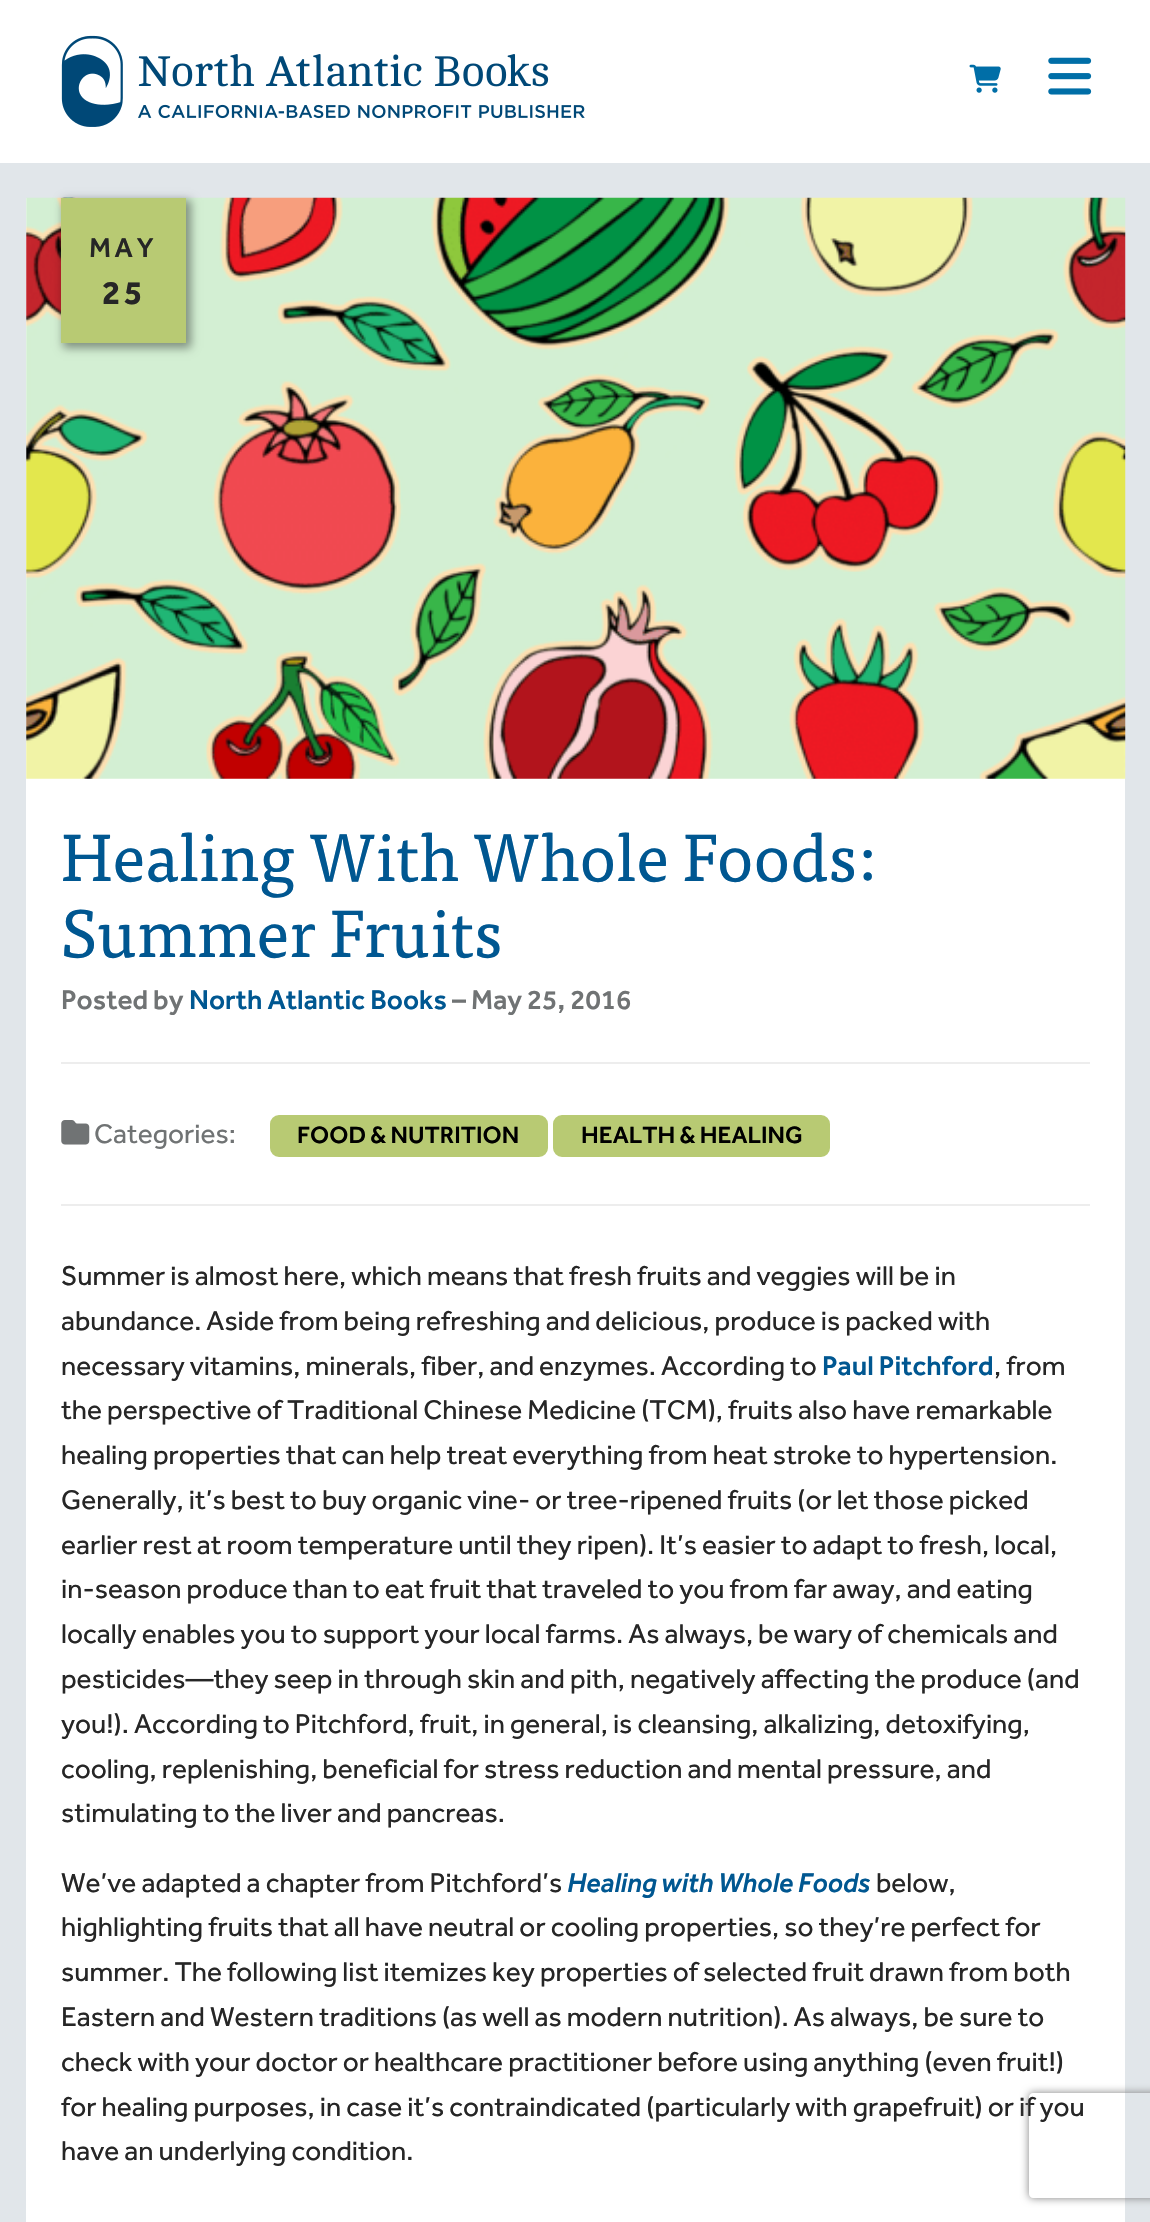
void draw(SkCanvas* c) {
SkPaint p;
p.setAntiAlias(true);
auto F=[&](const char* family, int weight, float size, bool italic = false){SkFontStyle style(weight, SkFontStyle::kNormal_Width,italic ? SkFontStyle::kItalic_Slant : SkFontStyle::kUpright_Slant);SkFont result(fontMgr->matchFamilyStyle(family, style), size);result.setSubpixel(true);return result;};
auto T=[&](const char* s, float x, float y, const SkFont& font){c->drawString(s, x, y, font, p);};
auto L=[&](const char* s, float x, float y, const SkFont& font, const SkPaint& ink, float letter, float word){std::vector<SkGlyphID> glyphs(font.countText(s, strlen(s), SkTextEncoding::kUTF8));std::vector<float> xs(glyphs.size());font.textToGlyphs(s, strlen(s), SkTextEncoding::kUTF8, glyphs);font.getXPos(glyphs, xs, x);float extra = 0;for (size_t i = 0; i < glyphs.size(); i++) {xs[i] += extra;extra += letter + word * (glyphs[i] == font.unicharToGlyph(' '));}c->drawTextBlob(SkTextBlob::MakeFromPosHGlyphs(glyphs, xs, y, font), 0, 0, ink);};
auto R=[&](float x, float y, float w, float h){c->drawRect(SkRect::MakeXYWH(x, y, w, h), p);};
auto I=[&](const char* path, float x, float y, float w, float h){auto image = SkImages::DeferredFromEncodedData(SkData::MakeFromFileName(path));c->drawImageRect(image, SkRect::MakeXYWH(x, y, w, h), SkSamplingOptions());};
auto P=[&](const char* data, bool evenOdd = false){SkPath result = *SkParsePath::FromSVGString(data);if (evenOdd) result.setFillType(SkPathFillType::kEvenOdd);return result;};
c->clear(0xffe1e6ea);
p.setColor(0xffffffff);
R(0,0,1150,163);
I("1.png",61,35,524,92);
I("2.png",969,64,32,29);
I("3.png",1048,57,44,38);
R(26,198,1099,2024);
I("4.png",26,197,1100,582);
p.setColor(0x66000000);
p.setMaskFilter(SkMaskFilter::MakeBlur(kNormal_SkBlurStyle, 4.5));
c->drawRect(SkRect::MakeXYWH(63,200,128,148),p);
p.setMaskFilter(nullptr);
p.setColor(0xffb8ca73);
R(61,198,125,145);
auto f1 = F("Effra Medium",500,28);
p.setColor(0xff262626);
L("MAY",89,257,f1,p,3.5,0);
auto f2 = F("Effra",700,34);
L("25",102,304,f2,p,3.5,0);
auto f3 = F("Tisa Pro",400,66.5);
p.setColor(0xff005791);
T("Healing With Whole Foods:",61,881,f3);
T("Summer Fruits",61,957,f3);
p.setColor(0xff707374);
T("Posted by",61,1009,f1);
p.setColor(0xff005791);
T("North Atlantic Books",189,1009,f1);
p.setColor(0xff707374);
T("– May 25, 2016",452,1009,f1);
p.setColor(0xffededed);
R(61,1062,1029,2);
I("5.png",61,1120,29,25);
auto f4 = F("Effra",400,28);
p.setColor(0xff707374);
T("Categories:",94,1143,f4);
p.setColor(0xffb8ca73);
c->drawRoundRect(SkRect::MakeXYWH(272,1117,274,38),7,7,p);
p.setStroke(true);
p.setStrokeWidth(4);
c->drawRoundRect(SkRect::MakeXYWH(272,1117,274,38),7,7,p);
auto f5 = F("Effra Medium",500,24.5);
p.setStroke(false);
p.setColor(0xff000000);
T("FOOD & NUTRITION",297,1143,f5);
p.setColor(0xffb8ca73);
c->drawRoundRect(SkRect::MakeXYWH(555,1117,273,38),7,7,p);
p.setStroke(true);
c->drawRoundRect(SkRect::MakeXYWH(555,1117,273,38),7,7,p);
p.setStroke(false);
p.setColor(0xff000000);
T("HEALTH & HEALING",581,1143,f5);
p.setColor(0xffededed);
R(61,1204,1029,2);
p.setColor(0xff262626);
T("Summer is almost here, which means that fresh fruits and veggies will be in",61,1285,f4);
T("abundance. Aside from being refreshing and delicious, produce is packed with",61,1330,f4);
T("necessary vitamins, minerals, fiber, and enzymes. According to",61,1375,f4);
p.setColor(0xff005791);
T("Paul Pitchford",822,1375,f1);
p.setColor(0xff262626);
T(", from",994,1375,f4);
T("the perspective of Traditional Chinese Medicine (TCM), fruits also have remarkable",61,1419,f4);
T("healing properties that can help treat everything from heat stroke to hypertension.",61,1464,f4);
T("Generally, it’s best to buy organic vine- or tree-ripened fruits (or let those picked",61,1509,f4);
T("earlier rest at room temperature until they ripen). It’s easier to adapt to fresh, local,",61,1554,f4);
T("in-season produce than to eat fruit that traveled to you from far away, and eating",61,1598,f4);
T("locally enables you to support your local farms. As always, be wary of chemicals and",61,1643,f4);
T("pesticides—they seep in through skin and pith, negatively affecting the produce (and",61,1688,f4);
T("you!). According to Pitchford, fruit, in general, is cleansing, alkalizing, detoxifying,",61,1733,f4);
T("cooling, replenishing, beneficial for stress reduction and mental pressure, and",61,1778,f4);
T("stimulating to the liver and pancreas.",61,1822,f4);
T("We’ve adapted a chapter from Pitchford’s",61,1892,f4);
auto f6 = F("Effra Medium",500,28,true);
p.setColor(0xff005791);
T("Healing with Whole Foods",567,1892,f6);
p.setColor(0xff262626);
T("below,",876,1892,f4);
T("highlighting fruits that all have neutral or cooling properties, so they’re perfect for",61,1936,f4);
T("summer. The following list itemizes key properties of selected fruit drawn from both",61,1981,f4);
T("Eastern and Western traditions (as well as modern nutrition). As always, be sure to",61,2026,f4);
T("check with your doctor or healthcare practitioner before using anything (even fruit!)",61,2071,f4);
T("for healing purposes, in case it’s contraindicated (particularly with grapefruit) or if you",61,2116,f4);
T("have an underlying condition.",61,2160,f4);
c->save();
c->clipPath(P("M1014 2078h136v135h-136zm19 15h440c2 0 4 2 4 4v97c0 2-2 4-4 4h-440c-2 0-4-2-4-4v-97c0-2 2-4 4-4z",true),true);
p.setColor(0xff808080);
p.setMaskFilter(SkMaskFilter::MakeBlur(kNormal_SkBlurStyle, 4.5));
c->drawRoundRect(SkRect::MakeXYWH(1029,2093,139,105),4,4,p);
p.setMaskFilter(nullptr);
c->restore();
}
